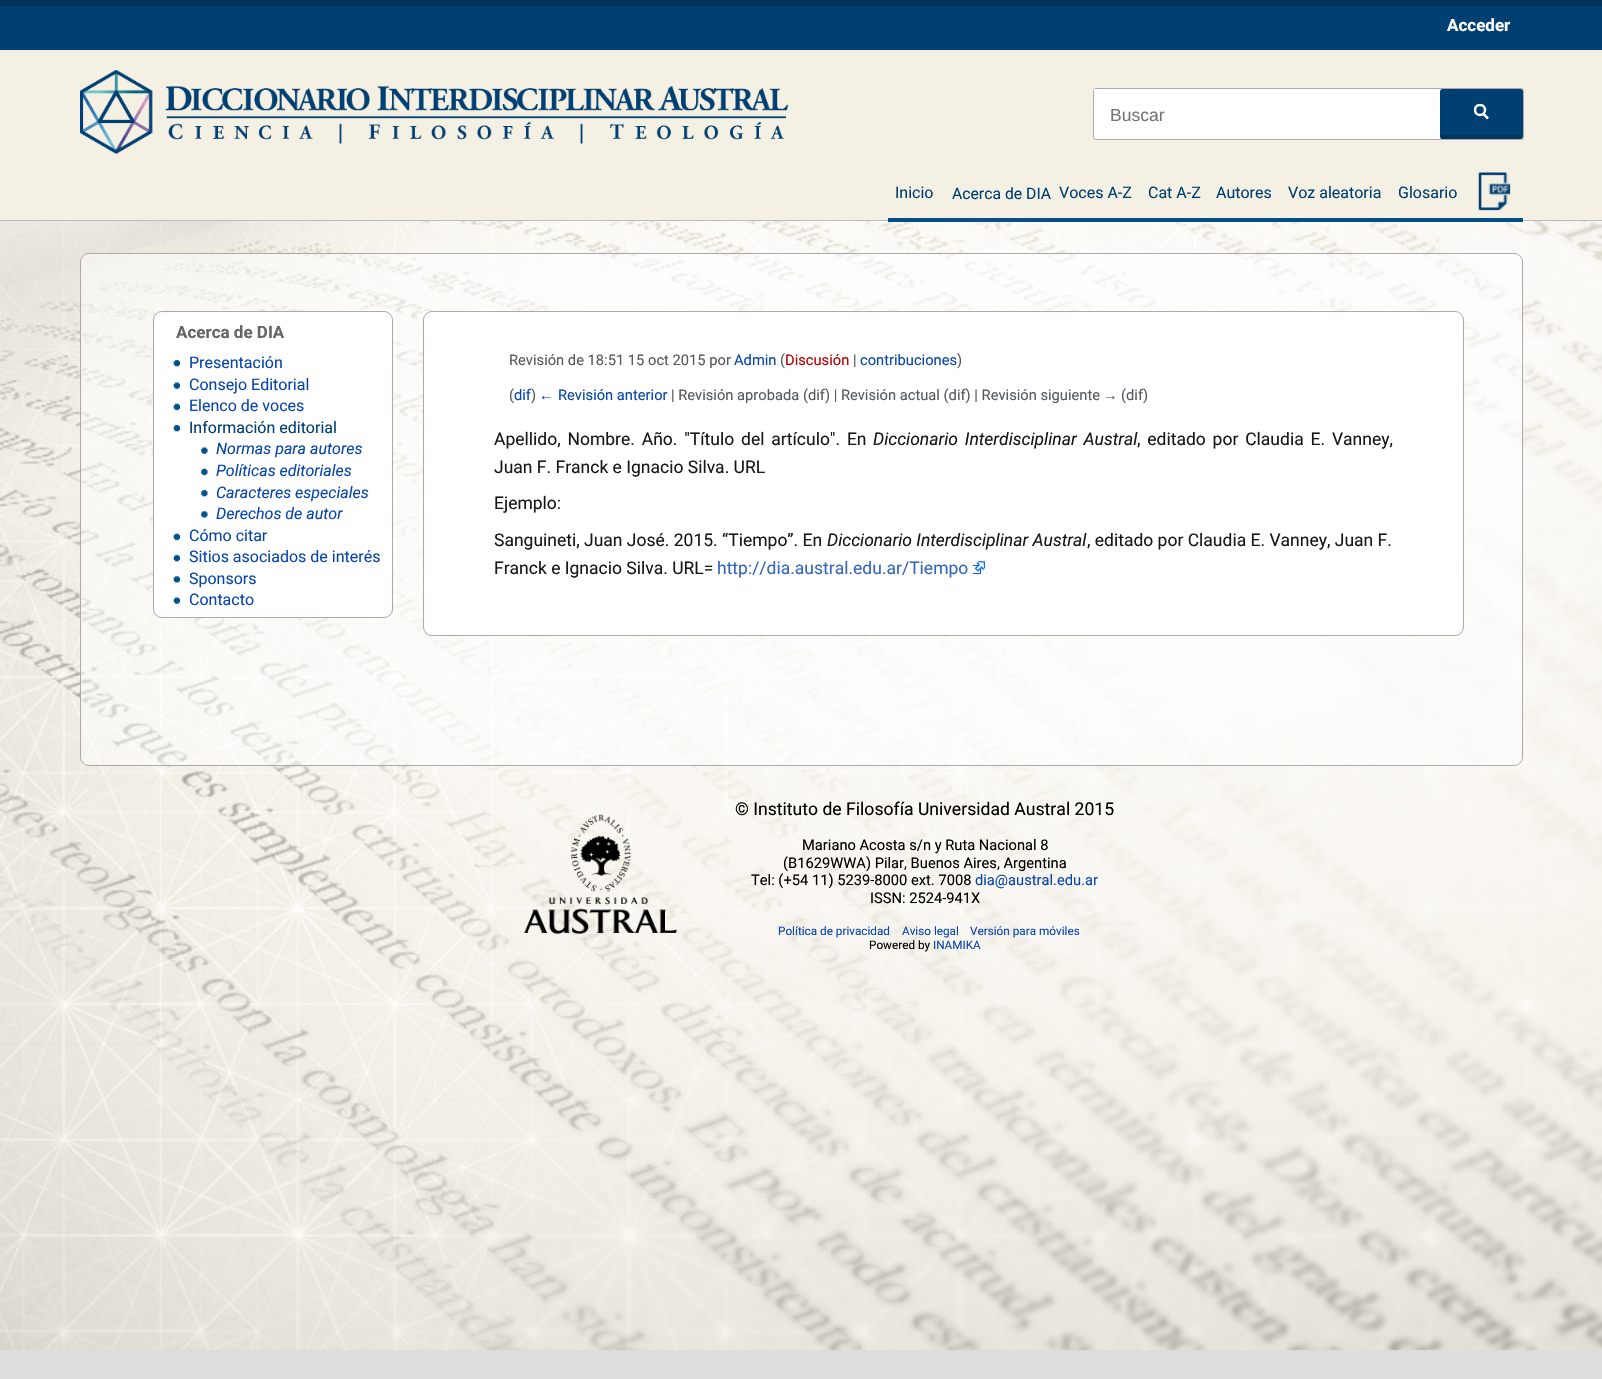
void draw(SkCanvas* c) {
SkPaint p;
p.setAntiAlias(true);
auto F=[&](const char* family, int weight, float size, bool italic = false){SkFontStyle style(weight, SkFontStyle::kNormal_Width,italic ? SkFontStyle::kItalic_Slant : SkFontStyle::kUpright_Slant);SkFont result(fontMgr->matchFamilyStyle(family, style), size);result.setSubpixel(true);return result;};
auto T=[&](const char* s, float x, float y, const SkFont& font){c->drawString(s, x, y, font, p);};
auto L=[&](const char* s, float x, float y, const SkFont& font, const SkPaint& ink, float letter, float word){std::vector<SkGlyphID> glyphs(font.countText(s, strlen(s), SkTextEncoding::kUTF8));std::vector<float> xs(glyphs.size());font.textToGlyphs(s, strlen(s), SkTextEncoding::kUTF8, glyphs);font.getXPos(glyphs, xs, x);float extra = 0;for (size_t i = 0; i < glyphs.size(); i++) {xs[i] += extra;extra += letter + word * (glyphs[i] == font.unicharToGlyph(' '));}c->drawTextBlob(SkTextBlob::MakeFromPosHGlyphs(glyphs, xs, y, font), 0, 0, ink);};
auto R=[&](float x, float y, float w, float h){c->drawRect(SkRect::MakeXYWH(x, y, w, h), p);};
auto Q=[&](float x, float y, float w, float h, float radius){c->drawRoundRect(SkRect::MakeXYWH(x, y, w, h), radius, radius, p);};
auto I=[&](const char* path, float x, float y, float w, float h){auto image = SkImages::DeferredFromEncodedData(SkData::MakeFromFileName(path));c->drawImageRect(image, SkRect::MakeXYWH(x, y, w, h), SkSamplingOptions());};
auto P=[&](const char* data, bool evenOdd = false){SkPath result = *SkParsePath::FromSVGString(data);if (evenOdd) result.setFillType(SkPathFillType::kEvenOdd);return result;};
c->clear(0xffdddddd);
I("1.png",0,221,1602,1130);
p.setColor(0xfff4f0e3);
R(0,50,1602,170);
p.setColor(0xff003f71);
R(0,6,1602,44);
p.setColor(0xff02345b);
R(0,0,1602,6);
auto f1 = F("Roboto",700,17);
p.setColor(0xffffffff);
T("Acceder",1447,31,f1);
I("2.png",80,70,709,84);
Q(1093,88,431,52,2.5);
I("3.png",1092,89,432,20);
p.setStroke(true);
p.setStrokeWidth(1);
p.setColor(0xffaaaaaa);
c->drawRoundRect(SkRect::MakeXYWH(1093.5,88.5,430,51),2,2,p);
p.setStroke(false);
p.setColor(0xffffffff);
R(1094,89,349,14);
auto f2 = F("Liberation Sans",400,17.5);
p.setColor(0xff757575);
T("Buscar",1110,121,f2);
p.setColor(0xff003f71);
Q(1440,89,83,50,2.5);
p.setStroke(true);
p.setStrokeWidth(2.5);
p.setColor(0xffffffff);
c->drawPath(P("M1488 118.5l-5-5"),p);
c->save();
c->clipRect(SkRect::MakeXYWH(1474,104,15,16));
c->drawCircle(1480,110,5,p);
c->restore();
p.setStroke(false);
p.setColor(0xff00355f);
R(1441,135,80,4);
p.setColor(0xffbbbbbb);
R(0,220,1602,1);
p.setColor(0xff004f85);
R(888,218,53,4);
auto f3 = F("Roboto",400,16);
p.setColor(0xff003f71);
T("Inicio",895,198,f3);
p.setColor(0xff004f85);
R(1051,218,472,4);
p.setColor(0xff0b4d88);
R(940,218,113,4);
auto f4 = F("Roboto",400,15.75);
p.setColor(0xff003f71);
T("Acerca de DIA",952,199,f4);
T("Voces A-Z",1059,198,f3);
T("Cat A-Z",1148,198,f3);
T("Autores",1216,198,f3);
T("Voz aleatoria",1288,198,f3);
T("Glosario",1398,198,f3);
I("4.png",1478,172,33,39);
p.setColor(0x80ffffff);
c->drawRoundRect(SkRect::MakeXYWH(80.5,253.5,1442,512),8.5,8.5,p);
p.setStroke(true);
p.setStrokeWidth(1);
p.setColor(0xffaaaaaa);
c->drawRoundRect(SkRect::MakeXYWH(80.5,253.5,1442,512),8.5,8.5,p);
p.setStroke(false);
p.setColor(0xffffffff);
c->drawRoundRect(SkRect::MakeXYWH(153.5,311.5,239,306),8.5,8.5,p);
p.setStroke(true);
p.setColor(0xffaaaaaa);
c->drawRoundRect(SkRect::MakeXYWH(153.5,311.5,239,306),8.5,8.5,p);
p.setStroke(false);
p.setColor(0xff666565);
T("Acerca de DIA",176,338,f1);
I("5.png",173,359,7,8);
p.setColor(0xff0645ad);
T("Presentación",189,368,f3);
I("6.png",173,382,7,7);
T("Consejo Editorial",189,390,f3);
I("7.png",173,403,7,8);
T("Elenco de voces",189,411,f3);
I("5.png",173,424,7,8);
p.setColor(0xff003f71);
T("Información editorial",189,433,f3);
I("8.png",201,447,7,7);
auto f5 = F("Roboto",400,16,true);
p.setColor(0xff0645ad);
T("Normas para autores",216,454,f5);
I("9.png",201,468,7,8);
T("Políticas editoriales",216,476,f5);
I("10.png",201,489,7,8);
T("Caracteres especiales",216,498,f5);
I("11.png",201,511,7,7);
T("Derechos de autor",216,519,f5);
I("7.png",173,533,7,8);
T("Cómo citar",189,541,f3);
I("5.png",173,554,7,8);
T("Sitios asociados de interés",189,562,f3);
I("12.png",173,576,7,7);
T("Sponsors",189,584,f3);
I("6.png",173,597,7,7);
T("Contacto",189,605,f3);
p.setColor(0xffffffff);
c->drawRoundRect(SkRect::MakeXYWH(423.5,311.5,1040,324),8.5,8.5,p);
p.setStroke(true);
p.setColor(0xffaaaaaa);
c->drawRoundRect(SkRect::MakeXYWH(423.5,311.5,1040,324),8.5,8.5,p);
auto f6 = F("Roboto",400,14.7);
p.setStroke(false);
p.setColor(0xff54595d);
T("Revisión de 18:51 15 oct 2015 por",509,365,f6);
p.setColor(0xff0645ad);
T("Admin",734,365,f6);
p.setColor(0xff54595d);
T("(",780,365,f6);
p.setColor(0xffba0000);
T("Discusión",785,365,f6);
p.setColor(0xff54595d);
T("|",853,365,f6);
p.setColor(0xff0645ad);
T("contribuciones",860,365,f6);
p.setColor(0xff54595d);
T(")",957,365,f6);
T("(",509,400,f6);
p.setColor(0xff0645ad);
T("dif",514,400,f6);
p.setColor(0xff54595d);
T(")",531,400,f6);
auto f7 = F("Liberation Sans",400,14.7);
p.setColor(0xff0645ad);
T("←",539,400,f7);
T("Revisión anterior",558,400,f6);
p.setColor(0xff54595d);
T("| Revisión aprobada (dif) | Revisión actual (dif) | Revisión siguiente",671,400,f6);
T("→",1103,400,f7);
T("(dif)",1121,400,f6);
auto f8 = F("Roboto",400,17.5);
p.setColor(0xff171717);
L("Apellido, Nombre. Año. \"Título del artículo\". En",494,445,f8,p,0,2.5);
auto f9 = F("Roboto",400,17.5,true);
L("Diccionario Interdisciplinar Austral",873,445,f9,p,0,2.5);
L(", editado por Claudia E. Vanney,",1137,445,f8,p,0,2.5);
T("Juan F. Franck e Ignacio Silva. URL",494,473,f8);
T("Ejemplo:",494,509,f8);
T("Sanguineti, Juan José. 2015. “Tiempo”. En",494,546,f8);
T("Diccionario Interdisciplinar Austral",827,546,f9);
T(", editado por Claudia E. Vanney, Juan F.",1087,546,f8);
T("Franck e Ignacio Silva. URL=",494,574,f8);
p.setColor(0xff3366bb);
T("http://dia.austral.edu.ar/Tiempo",717,574,f8);
I("13.png",973,561,12,13);
I("14.png",523,814,155,120);
auto f10 = F("Roboto",400,17.6);
p.setColor(0xff000000);
T("© Instituto de Filosofía Universidad Austral 2015",735,815,f10);
T("Mariano Acosta s/n y Ruta Nacional 8",802,850,f6);
T("(B1629WWA) Pilar, Buenos Aires, Argentina",783,868,f6);
T("Tel: (+54 11) 5239-8000 ext. 7008",751,885,f6);
p.setColor(0xff0645ad);
T("dia@austral.edu.ar",975,885,f6);
p.setColor(0xff000000);
T("ISSN: 2524-941X",870,903,f6);
auto f11 = F("Roboto",400,11.75);
p.setColor(0xff0645ad);
T("Política de privacidad",778,935,f11);
T("Aviso legal",902,935,f11);
T("Versión para móviles",970,935,f11);
p.setColor(0xff000000);
T("Powered by",869,949,f11);
p.setColor(0xff0645ad);
T("INAMIKA",933,949,f11);
}
